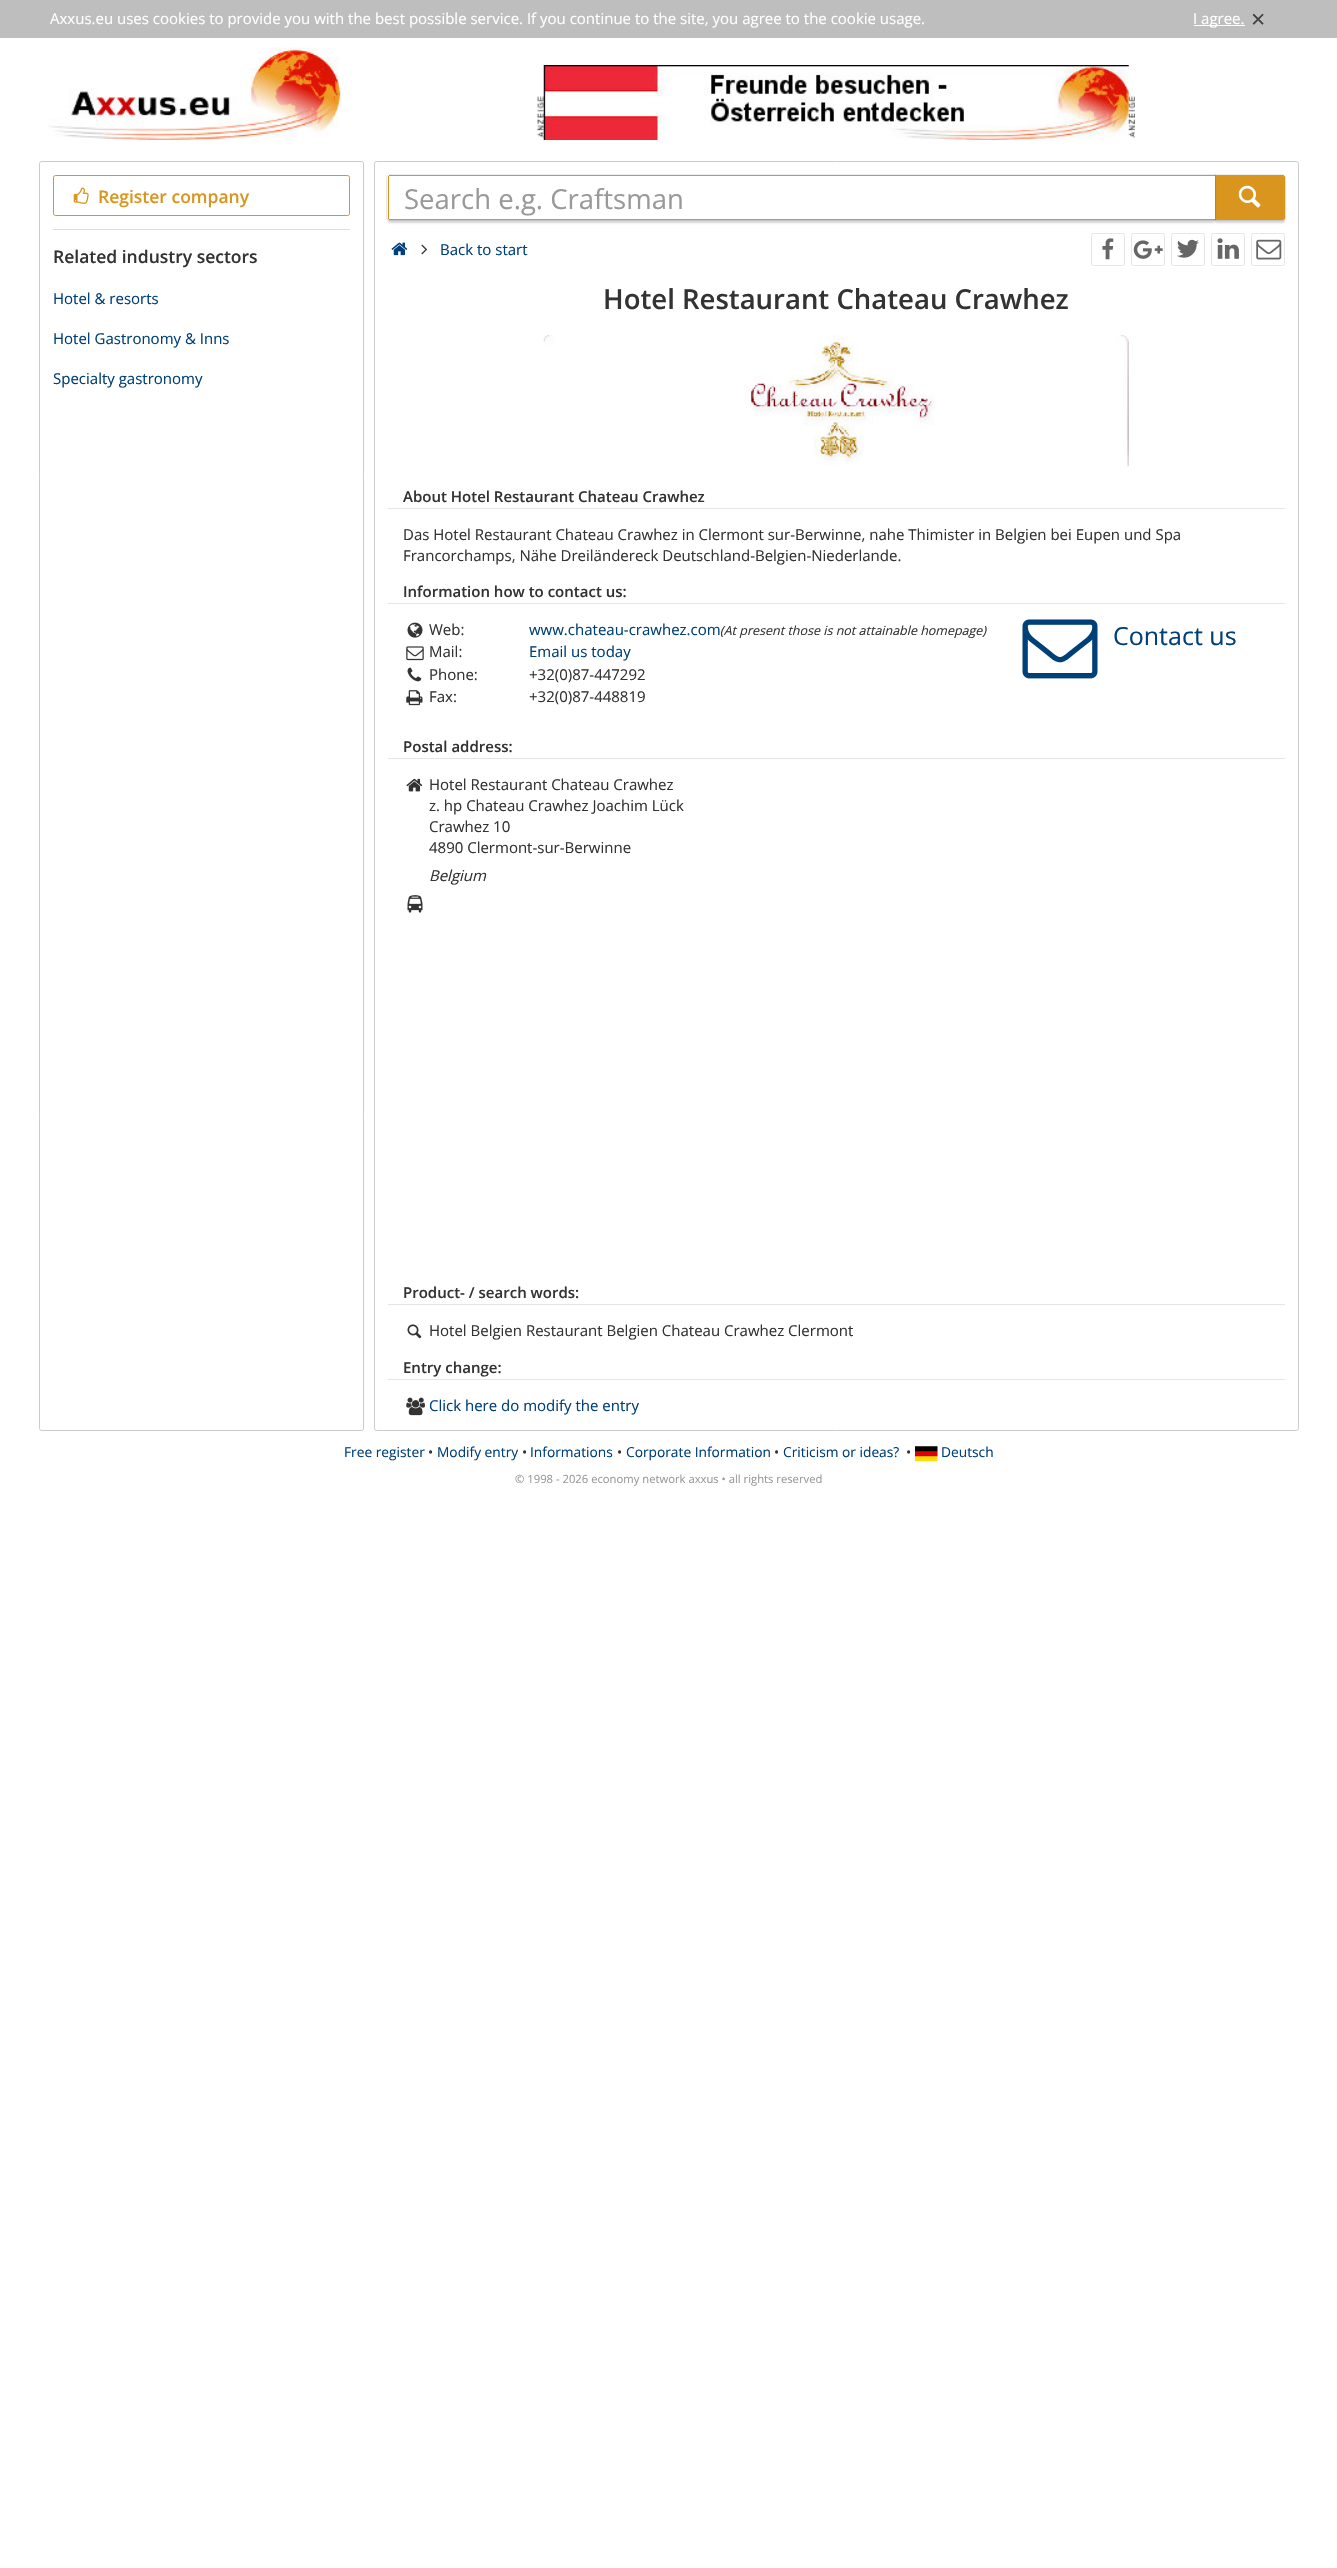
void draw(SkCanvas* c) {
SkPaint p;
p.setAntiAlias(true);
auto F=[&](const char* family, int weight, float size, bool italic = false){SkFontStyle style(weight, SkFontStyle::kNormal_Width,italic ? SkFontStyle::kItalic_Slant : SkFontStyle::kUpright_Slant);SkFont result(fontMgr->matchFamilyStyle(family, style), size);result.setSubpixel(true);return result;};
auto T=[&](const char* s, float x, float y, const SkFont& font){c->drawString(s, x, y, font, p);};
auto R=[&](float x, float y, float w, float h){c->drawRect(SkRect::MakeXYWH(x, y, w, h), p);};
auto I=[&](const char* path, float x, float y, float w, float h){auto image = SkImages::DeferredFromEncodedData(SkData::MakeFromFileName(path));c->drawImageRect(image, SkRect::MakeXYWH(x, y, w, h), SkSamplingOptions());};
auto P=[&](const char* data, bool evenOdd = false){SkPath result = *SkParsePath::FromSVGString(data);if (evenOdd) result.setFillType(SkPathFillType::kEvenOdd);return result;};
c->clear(0xffffffff);
p.setColor(0xffbebebe);
R(0,0,1337,38);
auto f1 = F("Open Sans",400,15);
p.setColor(0xffffffff);
T("Axxus.eu uses cookies to provide you with the best possible service. If you continue to the site, you agree to the cookie usage.",50,24,f1);
R(1194,25,51,1);
T("I agree.",1193,24,f1);
auto f2 = F("Open Sans",400,25);
p.setColor(0xff404040);
T("×",1251,28,f2);
I("1.png",48,47,293,93);
I("2.png",537,96,7,42);
I("3.png",543,65,586,75);
I("4.png",1128,95,7,43);
p.setStroke(true);
p.setStrokeWidth(1);
p.setColor(0xffcccccc);
c->drawRoundRect(SkRect::MakeXYWH(39.5,161.5,324,1269),2,2,p);
p.setColor(0xffd9951d);
c->drawRoundRect(SkRect::MakeXYWH(53.5,175.5,296,40),2,2,p);
I("5.png",73,187,16,17);
auto f3 = F("Open Sans",600,17.5);
p.setStroke(false);
T("Register company",98,203,f3);
p.setColor(0xffdddddd);
R(53,229,297,1);
p.setColor(0xff333333);
T("Related industry sectors",53,263,f3);
p.setColor(0xff004078);
T("Hotel & resorts",53,304,f1);
T("Hotel Gastronomy & Inns",53,344,f1);
T("Specialty gastronomy",53,384,f1);
p.setStroke(true);
p.setColor(0xffcccccc);
c->drawRoundRect(SkRect::MakeXYWH(374.5,161.5,924,1269),2,2,p);
p.setColor(0xffebebeb);
c->drawPath(P("M1214.5 174.5h67.5c2 0 3.5 1.5 3.5 3.5v39c0 2-1.5 3.5-3.5 3.5h-67.5z"),p);
p.setStroke(false);
p.setColor(0x29000000);
p.setMaskFilter(SkMaskFilter::MakeBlur(kNormal_SkBlurStyle, 1));
c->drawRoundRect(SkRect::MakeXYWH(1215,178,70,45),2.5,2.5,p);
p.setMaskFilter(nullptr);
p.setColor(0xffd9951d);
c->drawPath(P("M1215 176h68c.5 0 1 .5 1 1v41c0 .5-.5 1-1 1h-68z"),p);
R(1215,175,69,1);
R(1215,219,69,1);
p.setStroke(true);
p.setColor(0x14000000);
c->drawPath(P("M390 174.5h825.5v46h-825.5c-2 0-3.5-1.5-3.5-3.5v-39c0-2 1.5-3.5 3.5-3.5z"),p);
p.setStroke(false);
p.setColor(0x29000000);
p.setMaskFilter(SkMaskFilter::MakeBlur(kNormal_SkBlurStyle, 1));
c->drawRoundRect(SkRect::MakeXYWH(388,178,827,45),2.5,2.5,p);
p.setMaskFilter(nullptr);
p.setColor(0xffffffff);
c->drawPath(P("M390 176h825v43h-825c-.5 0-1-.5-1-1v-41c0-.5 .5-1 1-1z"),p);
p.setColor(0xffd9951d);
R(389,175,826,1);
R(389,219,826,1);
R(388,176,1,43);
auto f4 = F("Open Sans",400,27.5);
p.setColor(0xff999999);
T("Search e.g. Craftsman",404,209,f4);
p.setColor(0xffd9951d);
R(1284,176,1,43);
I("6.png",1238,185,23,23);
I("7.png",391,242,17,14);
I("8.png",421,244,6,11);
p.setColor(0xff004078);
T("Back to start",440,255,f1);
p.setStroke(true);
p.setColor(0xffe6e6e6);
c->drawRoundRect(SkRect::MakeXYWH(1091.5,233.5,33,32),2,2,p);
I("9.png",1102,238,12,22);
c->drawRoundRect(SkRect::MakeXYWH(1131.5,233.5,33,32),2,2,p);
I("10.png",1133,240,30,19);
c->drawRoundRect(SkRect::MakeXYWH(1171.5,233.5,33,32),2,2,p);
I("11.png",1177,239,22,19);
c->drawRoundRect(SkRect::MakeXYWH(1211.5,233.5,33,32),2,2,p);
I("12.png",1217,238,22,21);
c->drawRoundRect(SkRect::MakeXYWH(1251.5,233.5,33,32),2,2,p);
I("13.png",1256,239,26,21);
auto f5 = F("Open Sans",600,27.5);
p.setStroke(false);
p.setColor(0xff333333);
T("Hotel Restaurant Chateau Crawhez",603,309,f5);
I("14.png",543,335,586,132);
auto f6 = F("Open Sans",600,15);
T("About Hotel Restaurant Chateau Crawhez",403,502,f6);
p.setColor(0xffe5e5e5);
R(388,508,897,1);
p.setColor(0xff333333);
T("Das Hotel Restaurant Chateau Crawhez in Clermont sur-Berwinne, nahe Thimister in Belgien bei Eupen und Spa",403,540,f1);
T("Francorchamps, Nähe Dreiländereck Deutschland-Belgien-Niederlande.",403,561,f1);
T("Information how to contact us:",403,597,f6);
p.setColor(0xffe5e5e5);
R(388,603,897,1);
I("15.png",407,622,16,16);
p.setColor(0xff333333);
T("Web:",429,635,f1);
p.setColor(0xff004078);
T("www.chateau-crawhez.com",529,635,f1);
auto f7 = F("Open Sans",400,12.5,true);
p.setColor(0xff333333);
T("(At present those is not attainable homepage)",720,635,f7);
I("16.png",406,646,18,15);
T("Mail:",429,657,f1);
p.setColor(0xff004078);
T("Email us today",529,657,f1);
I("17.png",407,667,15,15);
p.setColor(0xff333333);
T("Phone:",429,680,f1);
T("+32(0)87-447292",529,680,f1);
I("18.png",406,690,17,16);
T("Fax:",429,702,f1);
T("+32(0)87-448819",529,702,f1);
I("19.png",1022,619,76,60);
p.setColor(0xff004078);
T("Contact us",1113,645,f2);
p.setColor(0xff333333);
T("Postal address:",403,752,f6);
p.setColor(0xffe5e5e5);
R(388,758,897,1);
I("20.png",406,778,17,14);
p.setColor(0xff333333);
T("Hotel Restaurant Chateau Crawhez",429,790,f1);
T("z. hp Chateau Crawhez Joachim Lück",429,811,f1);
T("Crawhez 10",429,832,f1);
T("4890 Clermont-sur-Berwinne",429,853,f1);
auto f8 = F("Open Sans",400,15,true);
T("Belgium",429,881,f8);
I("21.png",407,895,16,18);
T("Product- / search words:",403,1298,f6);
p.setColor(0xffe5e5e5);
R(388,1304,897,1);
I("22.png",407,1324,15,15);
p.setColor(0xff333333);
T("Hotel Belgien Restaurant Belgien Chateau Crawhez Clermont",429,1336,f1);
T("Entry change:",403,1373,f6);
p.setColor(0xffe5e5e5);
R(388,1379,897,1);
I("23.png",406,1397,19,19);
p.setColor(0xff004078);
T("Click here do modify the entry",429,1411,f1);
auto f9 = F("Open Sans",400,13.75);
T("Free register",344,1457,f9);
p.setColor(0xff333333);
T("•",428,1457,f9);
p.setColor(0xff004078);
T("Modify entry",437,1457,f9);
p.setColor(0xff333333);
T("•",522,1457,f9);
p.setColor(0xff004078);
T("Informations",530,1457,f9);
p.setColor(0xff333333);
T("•",617,1457,f9);
p.setColor(0xff004078);
T("Corporate Information",626,1457,f9);
p.setColor(0xff333333);
T("•",774,1457,f9);
p.setColor(0xff004078);
T("Criticism or ideas?",783,1457,f9);
p.setColor(0xff333333);
T("•",906,1457,f9);
I("24.png",915,1446,23,16);
p.setColor(0xff004078);
T("Deutsch",941,1457,f9);
auto f10 = F("Open Sans",400,11.25);
p.setColor(0xff999999);
T("© 1998 - 2026 economy network axxus • all rights reserved",515,1483,f10);
}
